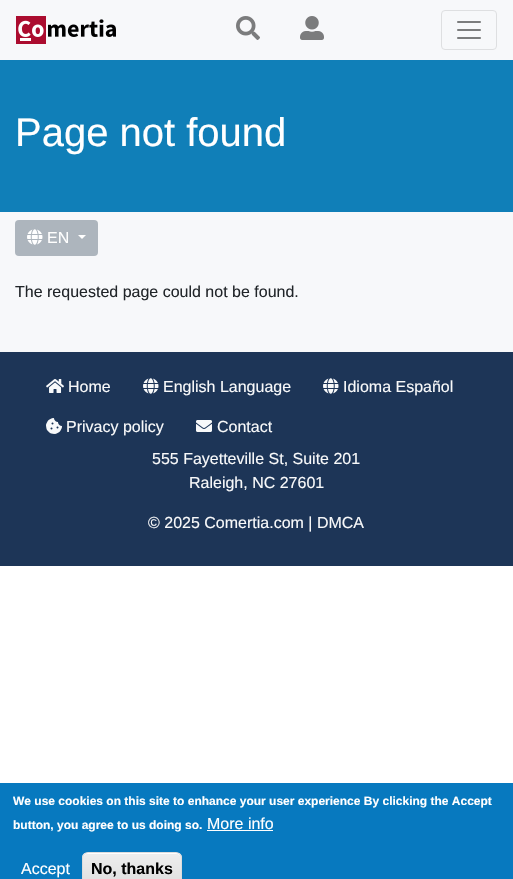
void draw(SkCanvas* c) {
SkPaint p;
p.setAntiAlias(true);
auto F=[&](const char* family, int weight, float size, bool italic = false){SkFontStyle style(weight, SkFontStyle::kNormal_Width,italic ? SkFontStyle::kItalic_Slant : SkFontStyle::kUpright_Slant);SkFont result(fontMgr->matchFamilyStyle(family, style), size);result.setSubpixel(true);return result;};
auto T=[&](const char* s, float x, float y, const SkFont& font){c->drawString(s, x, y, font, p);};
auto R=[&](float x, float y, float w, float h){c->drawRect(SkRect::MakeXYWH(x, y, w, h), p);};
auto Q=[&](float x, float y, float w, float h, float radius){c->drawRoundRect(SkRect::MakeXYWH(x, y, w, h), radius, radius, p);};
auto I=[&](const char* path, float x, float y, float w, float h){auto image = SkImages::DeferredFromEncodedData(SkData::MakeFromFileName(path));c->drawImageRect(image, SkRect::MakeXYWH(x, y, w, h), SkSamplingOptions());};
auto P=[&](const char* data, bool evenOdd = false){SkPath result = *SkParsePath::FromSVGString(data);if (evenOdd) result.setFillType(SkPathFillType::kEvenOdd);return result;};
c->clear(0xffffffff);
p.setColor(0xfff7f8fa);
R(0,0,513,352);
I("1.png",16,16,100,28);
I("2.png",236,16,24,24);
I("3.png",300,16,24,24);
p.setStroke(true);
p.setStrokeWidth(1);
p.setColor(0xffdedfe1);
c->drawRoundRect(SkRect::MakeXYWH(441.5,10.5,55,39),3.5,3.5,p);
I("4.png",457,21,24,18);
p.setStroke(false);
p.setColor(0xff107fb8);
R(0,60,513,152);
auto f1 = F("Liberation Sans",400,40);
p.setColor(0xffffffff);
T("Page not found",15,146,f1);
p.setColor(0xffadb5bd);
Q(15,220,83,36,4);
I("5.png",27,229,16,16);
auto f2 = F("Liberation Sans",400,16);
p.setColor(0xffffffff);
T("EN",47,243,f2);
c->drawPath(P("M78 235h8l-4 4z"),p);
p.setColor(0xff212529);
T("The requested page could not be found.",15,297,f2);
p.setColor(0xff1d3557);
R(0,352,513,214);
I("6.png",46,379,18,14);
p.setColor(0xfff8f9fa);
T("Home",68,392,f2);
I("7.png",143,378,16,16);
T("English Language",163,392,f2);
I("7.png",323,378,16,16);
T("Idioma Español",343,392,f2);
I("8.png",46,418,16,16);
T("Privacy policy",66,432,f2);
I("9.png",196,420,16,12);
T("Contact",217,432,f2);
T("555 Fayetteville St, Suite 201",152,464,f2);
T("Raleigh, NC 27601",189,488,f2);
T("© 2025 Comertia.com | DMCA",148,528,f2);
p.setColor(0xff0779bf);
R(0,783,513,96);
auto f3 = F("Liberation Sans",700,12);
p.setColor(0xffffffff);
T("We use cookies on this site to enhance your user experience By clicking the Accept",13,805,f3);
T("button, you agree to us doing so.",13,829,f3);
T("More info",207,829,f2);
R(207,830,66,1);
T("Accept",21,874,f2);
c->save();
c->clipPath(P("M88 852h88c3.5 0 6 2.5 6 6v22c0 3.5-2.5 6-6 6h-88c-3.5 0-6-2.5-6-6v-22c0-3.5 2.5-6 6-6z"),true);
{
const SkColor colors[] = {0xffededed,0xffdfdfdf};
const float stops[] = {.05,1};
const SkPoint ends[] = {{132,853}, {132,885}};
p.setShader(SkGradientShader::MakeLinear(ends, colors, stops, 2, SkTileMode::kClamp));
p.setAlpha(255);
}
R(82,853,100,26);
c->restore();
p.setShader(nullptr);
p.setColor(0xffffffff);
c->drawPath(P("M88 854h88c3 0 5 2 5 5c0-10-14-6-20-6h-58c-6 0-20-4-20 6c0-3 2-5 5-5z"),p);
p.setStroke(true);
p.setColor(0xffdcdcdc);
c->drawRoundRect(SkRect::MakeXYWH(82.5,852.5,99,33),5.5,5.5,p);
auto f4 = F("Liberation Sans",700,16);
p.setStroke(false);
p.setColor(0xff000000);
T("No, thanks",91,874,f4);
}
